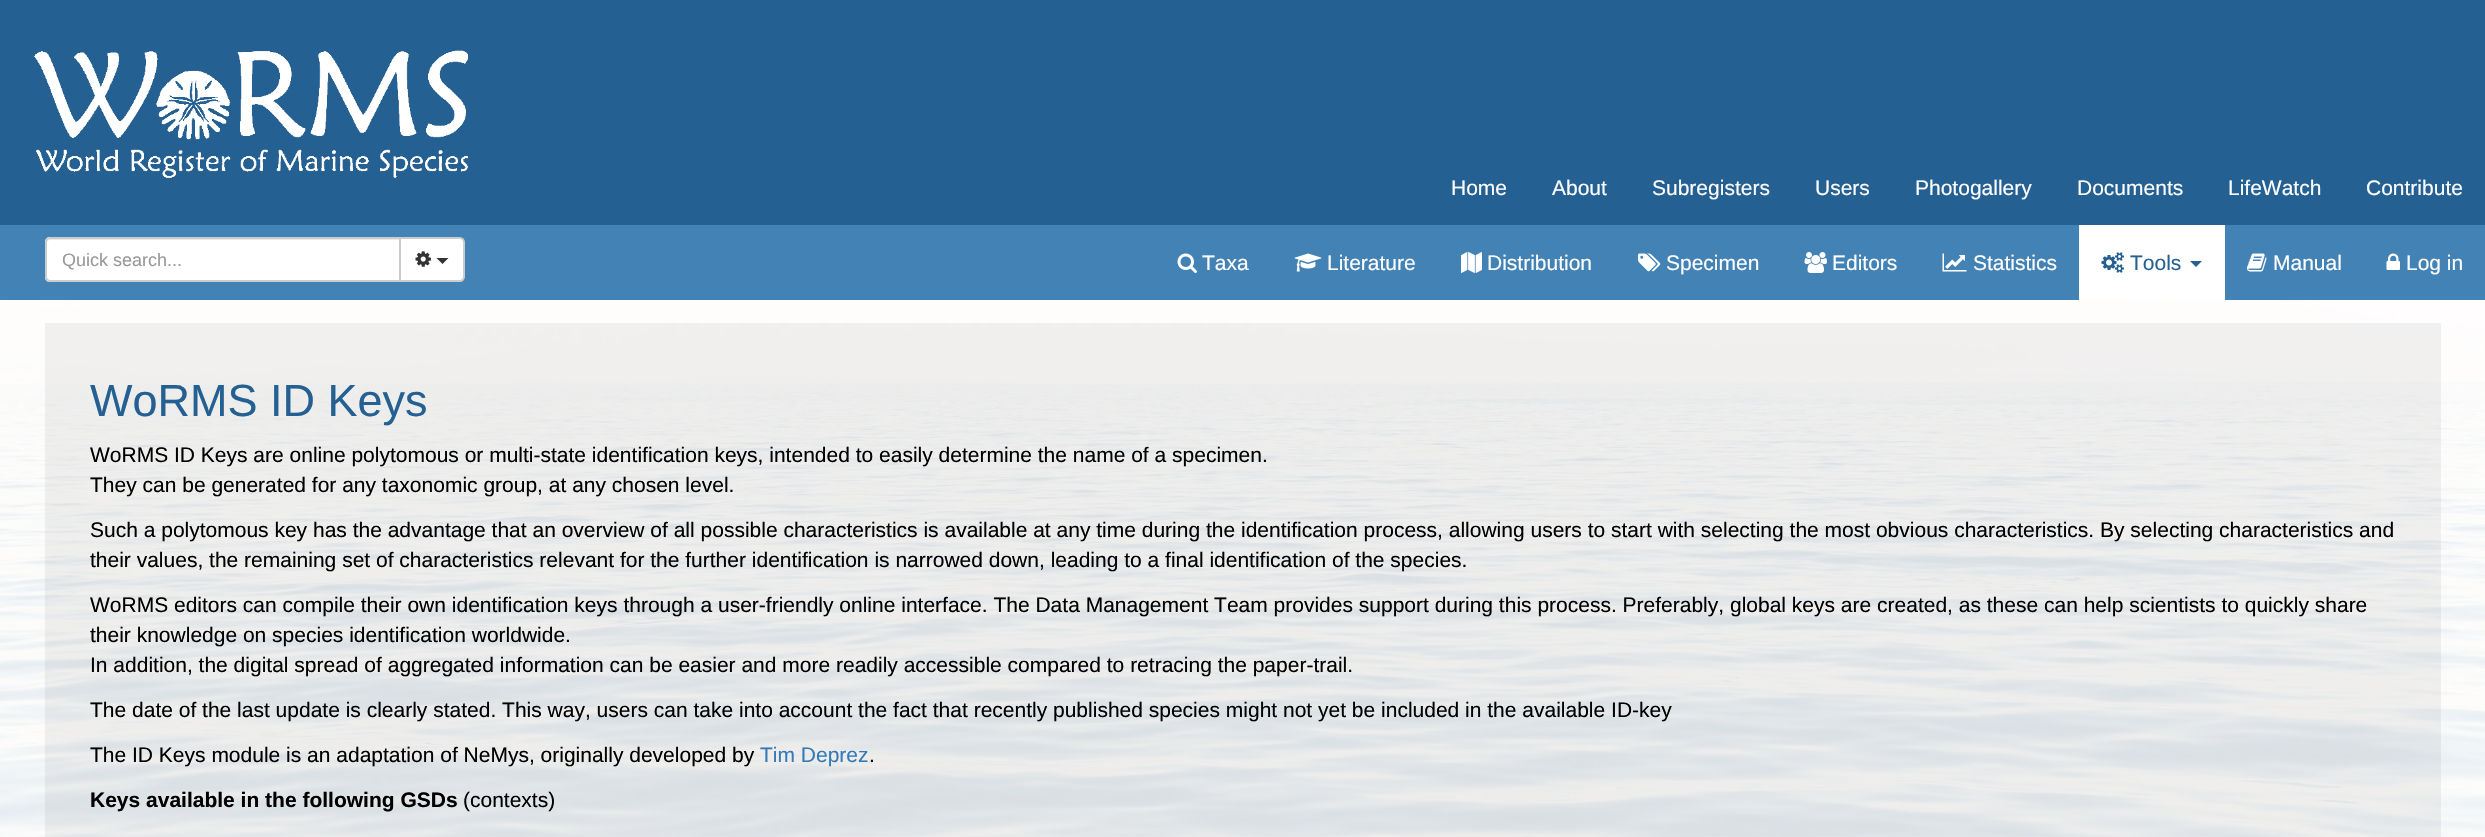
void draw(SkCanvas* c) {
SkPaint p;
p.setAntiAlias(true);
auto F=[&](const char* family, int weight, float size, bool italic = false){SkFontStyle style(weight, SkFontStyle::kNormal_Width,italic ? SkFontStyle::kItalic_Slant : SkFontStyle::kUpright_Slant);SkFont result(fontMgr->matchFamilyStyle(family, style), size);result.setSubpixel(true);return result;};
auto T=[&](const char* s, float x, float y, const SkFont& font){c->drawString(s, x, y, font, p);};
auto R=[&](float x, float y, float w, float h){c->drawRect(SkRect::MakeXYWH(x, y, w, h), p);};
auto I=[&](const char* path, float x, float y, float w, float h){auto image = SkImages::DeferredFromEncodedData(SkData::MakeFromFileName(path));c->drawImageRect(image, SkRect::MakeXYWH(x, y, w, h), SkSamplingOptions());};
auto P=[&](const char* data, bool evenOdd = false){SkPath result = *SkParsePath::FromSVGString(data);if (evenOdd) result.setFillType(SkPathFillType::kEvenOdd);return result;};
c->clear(0xffffffff);
p.setColor(0xff256092);
R(0,0,2485,225);
I("1.png",34,50,434,128);
auto f1 = F("Liberation Sans",400,21);
p.setColor(0xffffffff);
T("Home",1451,195,f1);
T("About",1552,195,f1);
T("Subregisters",1652,195,f1);
T("Users",1815,195,f1);
T("Photogallery",1915,195,f1);
T("Documents",2077,195,f1);
T("LifeWatch",2228,195,f1);
T("Contribute",2366,195,f1);
p.setColor(0xff4382b5);
R(0,225,2485,75);
p.setColor(0xffffffff);
c->drawPath(P("M50 237h351v45h-351c-3 0-5-2-5-5v-35c0-3 2-5 5-5z"),p);
p.setColor(0xffececec);
c->drawPath(P("M50 240h349v-1h-349l-2 1l-1 1z"),p);
p.setStroke(true);
p.setStrokeWidth(2);
p.setColor(0xffcccccc);
c->drawPath(P("M50 238h350v43h-350c-2 0-4-2-4-4v-35c0-2 2-4 4-4z"),p);
auto f2 = F("Liberation Sans",400,18);
p.setStroke(false);
p.setColor(0xff999999);
T("Quick search...",62,266,f2);
p.setColor(0xffffffff);
c->drawPath(P("M400 238h60c2 0 4 2 4 4v35c0 2-2 4-4 4h-60z"),p);
p.setStroke(true);
p.setColor(0xffcccccc);
c->drawPath(P("M400 238h60c2 0 4 2 4 4v35c0 2-2 4-4 4h-60z"),p);
I("2.png",415,251,16,16);
p.setStroke(false);
p.setColor(0xff333333);
c->drawPath(P("M436.5 258h12l-6 6z"),p);
I("3.png",1177,253,20,20);
p.setColor(0xffffffff);
T("Taxa",1202,270,f1);
I("4.png",1294,253,28,19);
T("Literature",1327,270,f1);
I("5.png",1461,252,21,21);
T("Distribution",1487,270,f1);
I("6.png",1638,253,23,19);
T("Specimen",1666,270,f1);
I("7.png",1804,252,23,21);
T("Editors",1832,270,f1);
I("8.png",1942,253,25,19);
T("Statistics",1973,270,f1);
R(2079,225,146,75);
I("9.png",2101,252,23,21);
p.setColor(0xff256092);
T("Tools",2130,270,f1);
c->drawPath(P("M2190 261h12l-6 6z"),p);
I("10.png",2247,253,20,19);
p.setColor(0xffffffff);
T("Manual",2273,270,f1);
I("11.png",2386,253,14,17);
T("Log in",2406,270,f1);
I("12.png",0,300,2485,537);
p.setColor(0xe6ffffff);
R(0,300,2485,537);
p.setColor(0x0d000000);
R(45,323,2396,514);
auto f3 = F("Liberation Sans",400,45);
p.setColor(0xff256092);
T("WoRMS ID Keys",90,416,f3);
p.setColor(0xff000000);
T("WoRMS ID Keys are online polytomous or multi-state identification keys, intended to easily determine the name of a specimen.",90,462,f1);
T("They can be generated for any taxonomic group, at any chosen level.",90,492,f1);
T("Such a polytomous key has the advantage that an overview of all possible characteristics is available at any time during the identification process, allowing users to start with selecting the most obvious characteristics. By selecting characteristics and",90,537,f1);
T("their values, the remaining set of characteristics relevant for the further identification is narrowed down, leading to a final identification of the species.",90,567,f1);
T("WoRMS editors can compile their own identification keys through a user-friendly online interface. The Data Management Team provides support during this process. Preferably, global keys are created, as these can help scientists to quickly share",90,612,f1);
T("their knowledge on species identification worldwide.",90,642,f1);
T("In addition, the digital spread of aggregated information can be easier and more readily accessible compared to retracing the paper-trail.",90,672,f1);
T("The date of the last update is clearly stated. This way, users can take into account the fact that recently published species might not yet be included in the available ID-key",90,717,f1);
T("The ID Keys module is an adaptation of NeMys, originally developed by",90,762,f1);
p.setColor(0xff337ab7);
T("Tim Deprez",760,762,f1);
p.setColor(0xff000000);
T(".",869,762,f1);
auto f4 = F("Liberation Sans",700,21);
T("Keys available in the following GSDs",90,807,f4);
T("(contexts)",463,807,f1);
}
